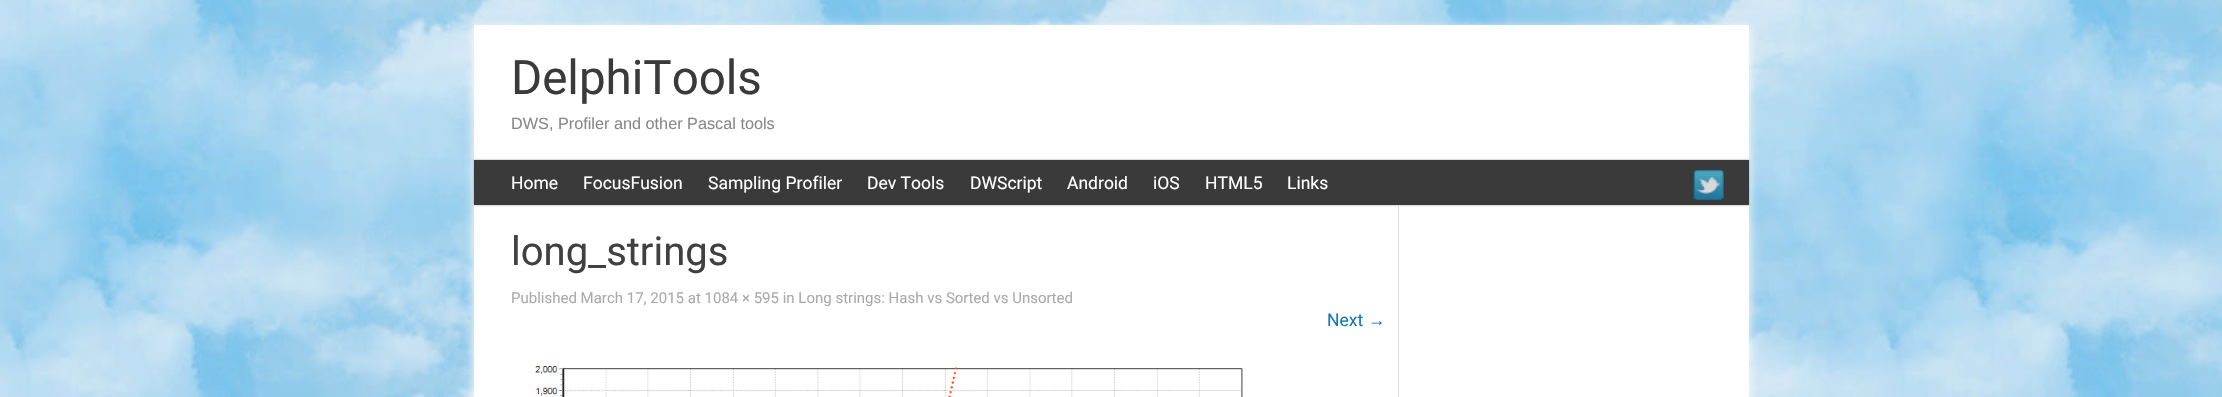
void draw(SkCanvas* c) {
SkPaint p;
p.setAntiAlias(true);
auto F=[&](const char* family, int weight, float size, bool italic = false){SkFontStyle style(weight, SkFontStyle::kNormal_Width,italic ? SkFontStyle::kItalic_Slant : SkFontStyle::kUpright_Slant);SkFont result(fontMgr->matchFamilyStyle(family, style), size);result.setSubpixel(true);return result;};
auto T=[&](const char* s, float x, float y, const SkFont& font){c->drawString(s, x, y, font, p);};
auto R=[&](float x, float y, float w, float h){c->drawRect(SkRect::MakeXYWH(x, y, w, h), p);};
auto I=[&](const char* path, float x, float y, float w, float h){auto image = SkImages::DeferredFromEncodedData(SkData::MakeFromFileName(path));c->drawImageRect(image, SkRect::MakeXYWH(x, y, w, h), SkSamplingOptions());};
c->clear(0xffffffff);
I("1.png",0,0,2222,397);
p.setColor(0xffffffff);
p.setMaskFilter(SkMaskFilter::MakeBlur(kNormal_SkBlurStyle, 5));
c->drawRect(SkRect::MakeXYWH(474,28,1275,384),p);
p.setMaskFilter(nullptr);
R(474,25,1275,372);
auto f1 = F("Roboto",400,47.5);
p.setColor(0xff3a3a3a);
T("DelphiTools",511,94,f1);
auto f2 = F("Liberation Sans",400,16.25);
p.setColor(0xff888888);
T("DWS, Profiler and other Pascal tools",511,129,f2);
p.setColor(0xff999999);
p.setMaskFilter(SkMaskFilter::MakeBlur(kNormal_SkBlurStyle, 1));
c->drawRect(SkRect::MakeXYWH(474,160,1275,45),p);
p.setMaskFilter(nullptr);
p.setColor(0xff3a3a3a);
R(474,160,1275,45);
auto f3 = F("Roboto",400,17.5);
p.setColor(0xffffffff);
T("Home",511,189,f3);
T("FocusFusion",583,189,f3);
T("Sampling Profiler",708,189,f3);
T("Dev Tools",867,189,f3);
T("DWScript",970,189,f3);
T("Android",1067,189,f3);
T("iOS",1153,189,f3);
T("HTML5",1205,189,f3);
T("Links",1287,189,f3);
I("2.png",1693,170,31,30);
p.setColor(0xffdddddd);
R(1398,205,1,192);
auto f4 = F("Roboto",400,40);
p.setColor(0xff404040);
T("long_strings",511,265,f4);
auto f5 = F("Roboto",400,15);
p.setColor(0xffaaaaaa);
T("Published March 17, 2015 at 1084 × 595 in Long strings: Hash vs Sorted vs Unsorted",511,303,f5);
p.setColor(0xff117bb8);
T("Next",1327,326,f3);
auto f6 = F("Liberation Sans",400,17.5);
T("→",1368,326,f6);
I("3.png",535,366,708,31);
}
